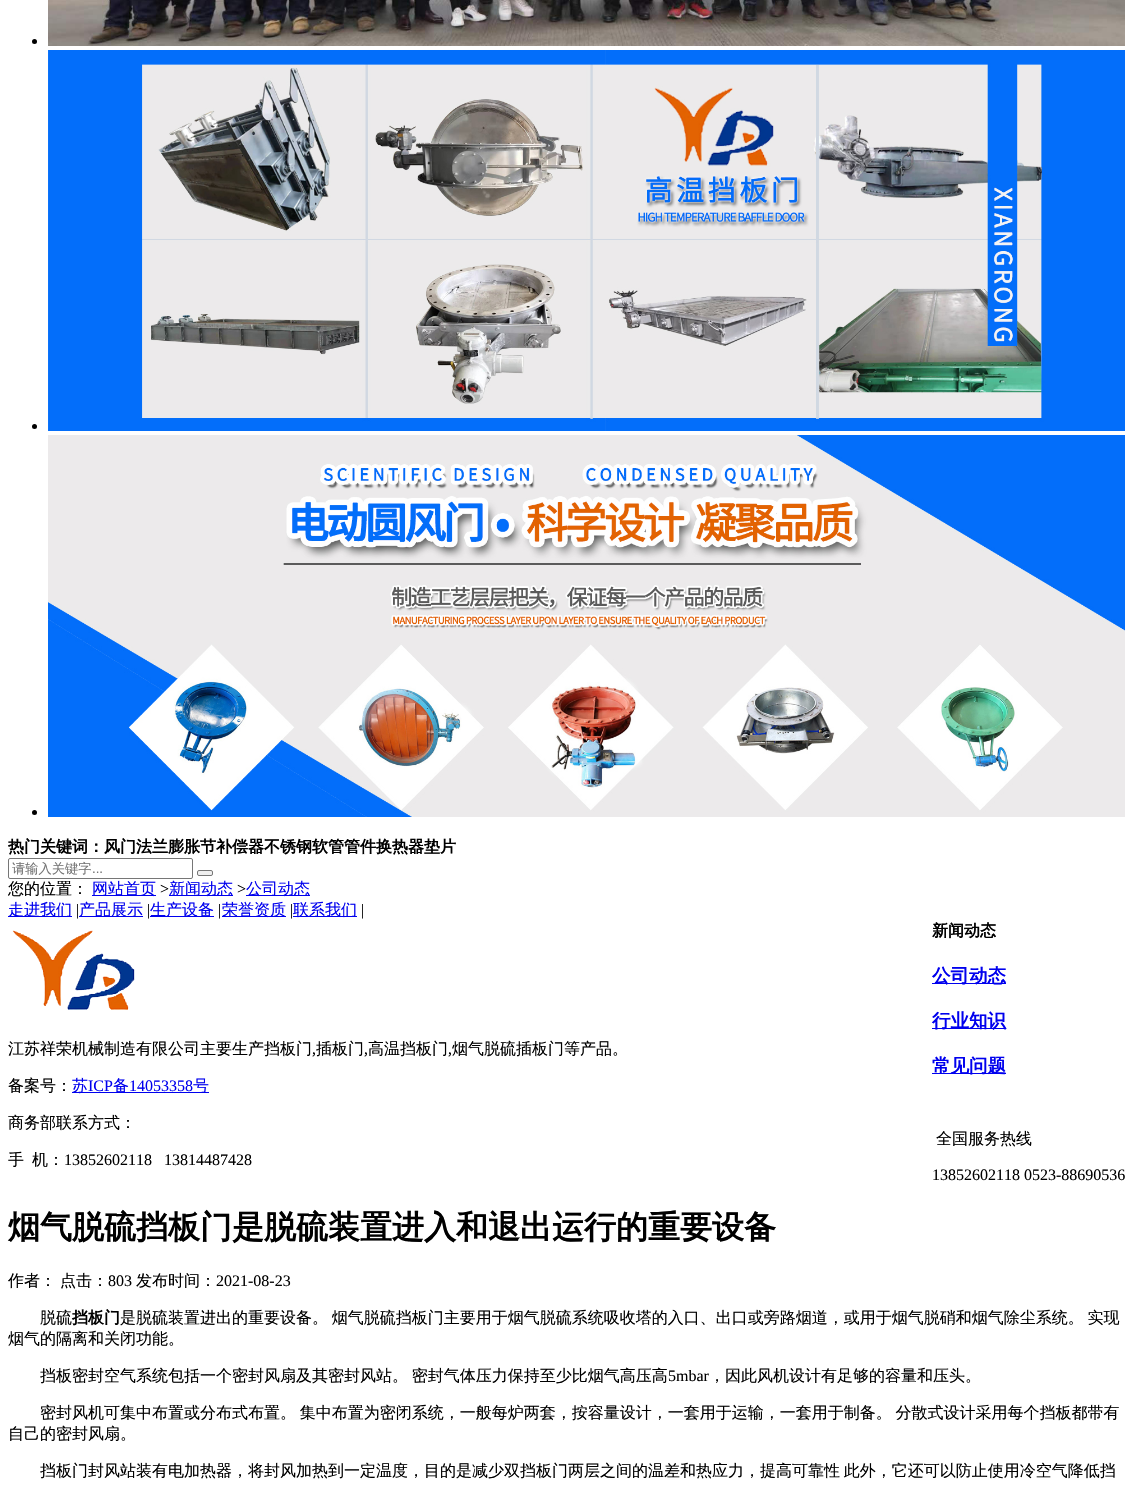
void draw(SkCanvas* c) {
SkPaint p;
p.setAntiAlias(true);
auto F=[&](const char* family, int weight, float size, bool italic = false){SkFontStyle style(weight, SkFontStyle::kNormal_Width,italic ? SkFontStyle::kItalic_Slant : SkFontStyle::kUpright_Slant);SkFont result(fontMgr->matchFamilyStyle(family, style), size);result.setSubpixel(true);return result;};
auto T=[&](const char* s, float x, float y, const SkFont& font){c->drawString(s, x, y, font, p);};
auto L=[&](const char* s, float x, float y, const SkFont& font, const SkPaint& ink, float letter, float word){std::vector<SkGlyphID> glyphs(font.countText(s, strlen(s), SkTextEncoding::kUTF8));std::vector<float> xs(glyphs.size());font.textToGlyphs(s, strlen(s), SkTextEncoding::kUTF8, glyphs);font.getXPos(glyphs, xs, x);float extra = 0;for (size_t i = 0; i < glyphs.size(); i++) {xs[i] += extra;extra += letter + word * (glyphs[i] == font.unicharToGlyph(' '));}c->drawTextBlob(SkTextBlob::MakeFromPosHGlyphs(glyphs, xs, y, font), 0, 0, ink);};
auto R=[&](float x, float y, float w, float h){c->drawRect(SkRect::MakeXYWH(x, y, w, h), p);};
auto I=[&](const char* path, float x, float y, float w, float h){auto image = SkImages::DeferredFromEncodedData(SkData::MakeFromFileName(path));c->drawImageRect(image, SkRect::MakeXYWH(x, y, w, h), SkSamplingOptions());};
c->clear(0xffffffff);
p.setColor(0xff000000);
c->drawCircle(34.5,41.5,2.5,p);
I("1.png",48,0,1077,46);
c->drawCircle(34.5,426.5,2.5,p);
I("2.png",48,50,1077,381);
c->drawCircle(34.5,812.5,2.5,p);
I("3.png",48,435,1077,382);
auto f1 = F("WenQuanYi Zen Hei",700,16);
T("热门关键词：风门法兰膨胀节补偿器不锈钢软管管件换热器垫片",8,852,f1);
p.setStroke(true);
p.setStrokeWidth(1);
p.setColor(0xff767676);
c->drawRoundRect(SkRect::MakeXYWH(8.5,858.5,184,20),1.5,1.5,p);
auto f2 = F("WenQuanYi Zen Hei",500,13.25);
p.setStroke(false);
p.setColor(0xff757575);
T("请输入关键字",12,873,f2);
auto f3 = F("Liberation Sans",400,13.25);
T("...",92,873,f3);
p.setColor(0xffefefef);
c->drawRoundRect(SkRect::MakeXYWH(197.5,870.5,15,5),1.5,1.5,p);
p.setStroke(true);
p.setColor(0xff767676);
c->drawRoundRect(SkRect::MakeXYWH(197.5,870.5,15,5),1.5,1.5,p);
auto f4 = F("WenQuanYi Zen Hei",500,16);
p.setStroke(false);
p.setColor(0xff000000);
T("您的位置：",8,894,f4);
p.setColor(0xff0000ee);
R(92,895,64,1);
T("网站首页",92,894,f4);
auto f5 = F("Liberation Serif",400,16);
p.setColor(0xff000000);
T(">",160,894,f5);
p.setColor(0xff0000ee);
R(169,895,64,1);
T("新闻动态",169,894,f4);
p.setColor(0xff000000);
T(">",237,894,f5);
p.setColor(0xff0000ee);
R(246,895,64,1);
T("公司动态",246,894,f4);
p.setColor(0xff000000);
T("新闻动态",932,936,f1);
p.setColor(0xff0000ee);
R(932,983,74,1);
auto f6 = F("WenQuanYi Zen Hei",700,18.5);
T("公司动态",932,982,f6);
R(932,1028,74,1);
T("行业知识",932,1027,f6);
R(932,1073,74,1);
T("常见问题",932,1072,f6);
p.setColor(0xff000000);
T("全国服务热线",936,1144,f4);
T("13852602118 0523-88690536",932,1180,f5);
auto f7 = F("WenQuanYi Zen Hei",700,32);
T("烟气脱硫挡板门是脱硫装置进入和退出运行的重要设备",8,1238,f7);
T("作者：",8,1286,f4);
T("点击：",60,1286,f4);
T("803",108,1286,f5);
T("发布时间：",136,1286,f4);
T("2021-08-23",216,1286,f5);
T("脱硫",40,1323,f4);
T("挡板门",72,1323,f1);
L("是脱硫装置进出的重要设备。 烟气脱硫挡板门主要用于烟气脱硫系统吸收塔的入口、出口或旁路烟道，或用于烟气脱硝和烟气除尘系统。 实现",120,1323,f4,p,0,-1);
T("烟气的隔离和关闭功能。",8,1344,f4);
L("挡板密封空气系统包括一个密封风扇及其密封风站。 密封气体压力保持至少比烟气高压高",40,1381,f4,p,0,-1);
T("5mbar",668,1381,f5);
T("，因此风机设计有足够的容量和压头。",709,1381,f4);
L("密封风机可集中布置或分布式布置。 集中布置为密闭系统，一般每炉两套，按容量设计，一套用于运输，一套用于制备。 分散式设计采用每个挡板都带有",40,1418,f4,p,0,-1);
T("自己的密封风扇。",8,1439,f4);
L("挡板门封风站装有电加热器，将封风加热到一定温度，目的是减少双挡板门两层之间的温差和热应力，提高可靠性 此外，它还可以防止使用冷空气降低挡",40,1476,f4,p,0,-1);
p.setColor(0xff0000ee);
R(8,916,64,1);
T("走进我们",8,915,f4);
p.setColor(0xff000000);
T("|",76,915,f5);
p.setColor(0xff0000ee);
R(79,916,64,1);
T("产品展示",79,915,f4);
p.setColor(0xff000000);
T("|",147,915,f5);
p.setColor(0xff0000ee);
R(150,916,64,1);
T("生产设备",150,915,f4);
p.setColor(0xff000000);
T("|",218,915,f5);
p.setColor(0xff0000ee);
R(222,916,64,1);
T("荣誉资质",222,915,f4);
p.setColor(0xff000000);
T("|",290,915,f5);
p.setColor(0xff0000ee);
R(293,916,64,1);
T("联系我们",293,915,f4);
p.setColor(0xff000000);
T("|",361,915,f5);
I("4.png",12,930,123,80);
T("江苏祥荣机械制造有限公司主要生产挡板门",8,1054,f4);
T(",",312,1054,f5);
T("插板门",316,1054,f4);
T(",",364,1054,f5);
T("高温挡板门",368,1054,f4);
T(",",448,1054,f5);
T("烟气脱硫插板门等产品。",452,1054,f4);
T("备案号：",8,1091,f4);
p.setColor(0xff0000ee);
R(72,1092,137,1);
T("苏",72,1091,f4);
T("ICP",88,1091,f5);
T("备",113,1091,f4);
T("14053358",129,1091,f5);
T("号",193,1091,f4);
p.setColor(0xff000000);
T("商务部联系方式：",8,1128,f4);
T("手",8,1165,f4);
T("机：",32,1165,f4);
T("13852602118   13814487428",64,1165,f5);
}
